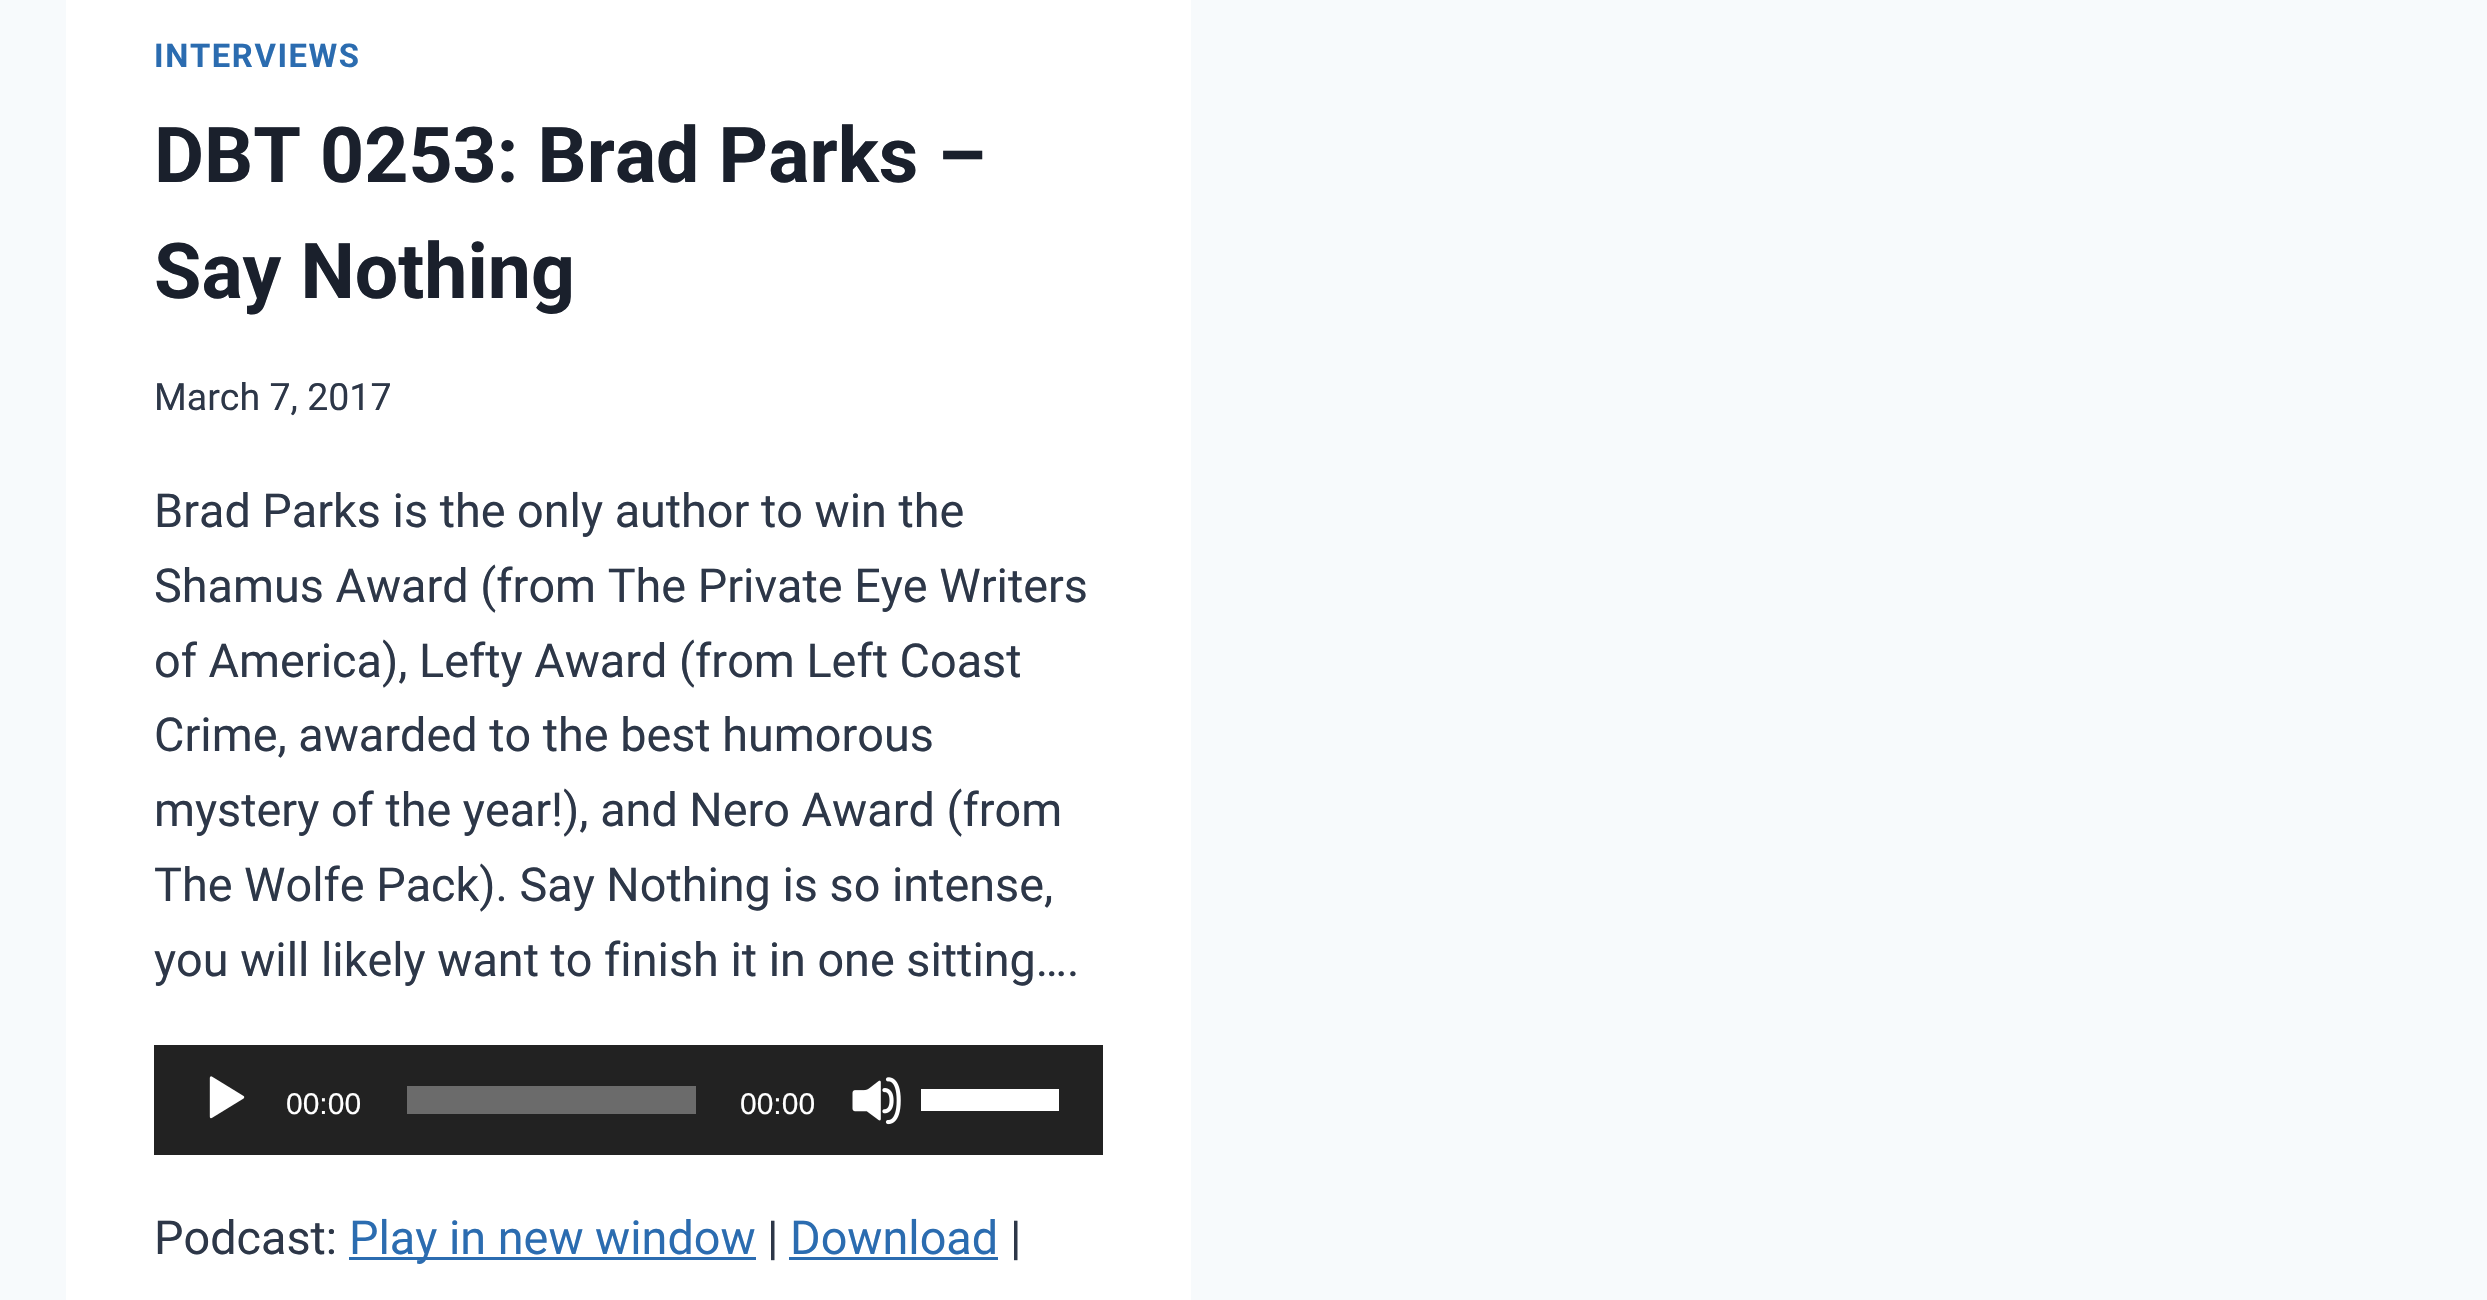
void draw(SkCanvas* c) {
SkPaint p;
p.setAntiAlias(true);
auto F=[&](const char* family, int weight, float size, bool italic = false){SkFontStyle style(weight, SkFontStyle::kNormal_Width,italic ? SkFontStyle::kItalic_Slant : SkFontStyle::kUpright_Slant);SkFont result(fontMgr->matchFamilyStyle(family, style), size);result.setSubpixel(true);return result;};
auto T=[&](const char* s, float x, float y, const SkFont& font){c->drawString(s, x, y, font, p);};
auto L=[&](const char* s, float x, float y, const SkFont& font, const SkPaint& ink, float letter, float word){std::vector<SkGlyphID> glyphs(font.countText(s, strlen(s), SkTextEncoding::kUTF8));std::vector<float> xs(glyphs.size());font.textToGlyphs(s, strlen(s), SkTextEncoding::kUTF8, glyphs);font.getXPos(glyphs, xs, x);float extra = 0;for (size_t i = 0; i < glyphs.size(); i++) {xs[i] += extra;extra += letter + word * (glyphs[i] == font.unicharToGlyph(' '));}c->drawTextBlob(SkTextBlob::MakeFromPosHGlyphs(glyphs, xs, y, font), 0, 0, ink);};
auto R=[&](float x, float y, float w, float h){c->drawRect(SkRect::MakeXYWH(x, y, w, h), p);};
auto I=[&](const char* path, float x, float y, float w, float h){auto image = SkImages::DeferredFromEncodedData(SkData::MakeFromFileName(path));c->drawImageRect(image, SkRect::MakeXYWH(x, y, w, h), SkSamplingOptions());};
c->clear(0xfff7fafc);
p.setColor(0xffffffff);
R(66,0,1125,1300);
auto f1 = F("Roboto",700,32.75);
p.setColor(0xff2b6cb0);
L("INTERVIEWS",154,67,f1,p,1.6,0);
auto f2 = F("Roboto",700,77);
p.setColor(0xff1a202c);
T("DBT 0253: Brad Parks –",154,182,f2);
T("Say Nothing",154,298,f2);
auto f3 = F("Roboto",400,37.5);
p.setColor(0xff2d3748);
T("March 7, 2017",154,410,f3);
auto f4 = F("Roboto",400,46.75);
T("Brad Parks is the only author to win the",154,527,f4);
T("Shamus Award (from The Private Eye Writers",154,602,f4);
T("of America), Lefty Award (from Left Coast",154,677,f4);
T("Crime, awarded to the best humorous",154,751,f4);
T("mystery of the year!), and Nero Award (from",154,826,f4);
T("The Wolfe Pack). Say Nothing is so intense,",154,901,f4);
T("you will likely want to finish it in one sitting….",154,976,f4);
p.setColor(0xff222222);
R(154,1045,949,110);
I("1.png",209,1076,36,43);
auto f5 = F("Liberation Sans",400,30);
p.setColor(0xffffffff);
T("00:00",286,1114,f5);
p.setColor(0xff6b6b6b);
R(407,1086,289,28);
p.setColor(0xffffffff);
T("00:00",740,1114,f5);
I("2.png",852,1077,49,48);
R(921,1089,138,22);
p.setColor(0xff2d3748);
T("Podcast:",154,1254,f4);
p.setColor(0xff2b6cb0);
R(349,1257,407,3);
T("Play in new window",349,1254,f4);
p.setColor(0xff2d3748);
T("|",767,1254,f4);
p.setColor(0xff2b6cb0);
T("Download",790,1254,f4);
R(789,1257,209,3);
p.setColor(0xff2d3748);
T("|",1010,1254,f4);
}
